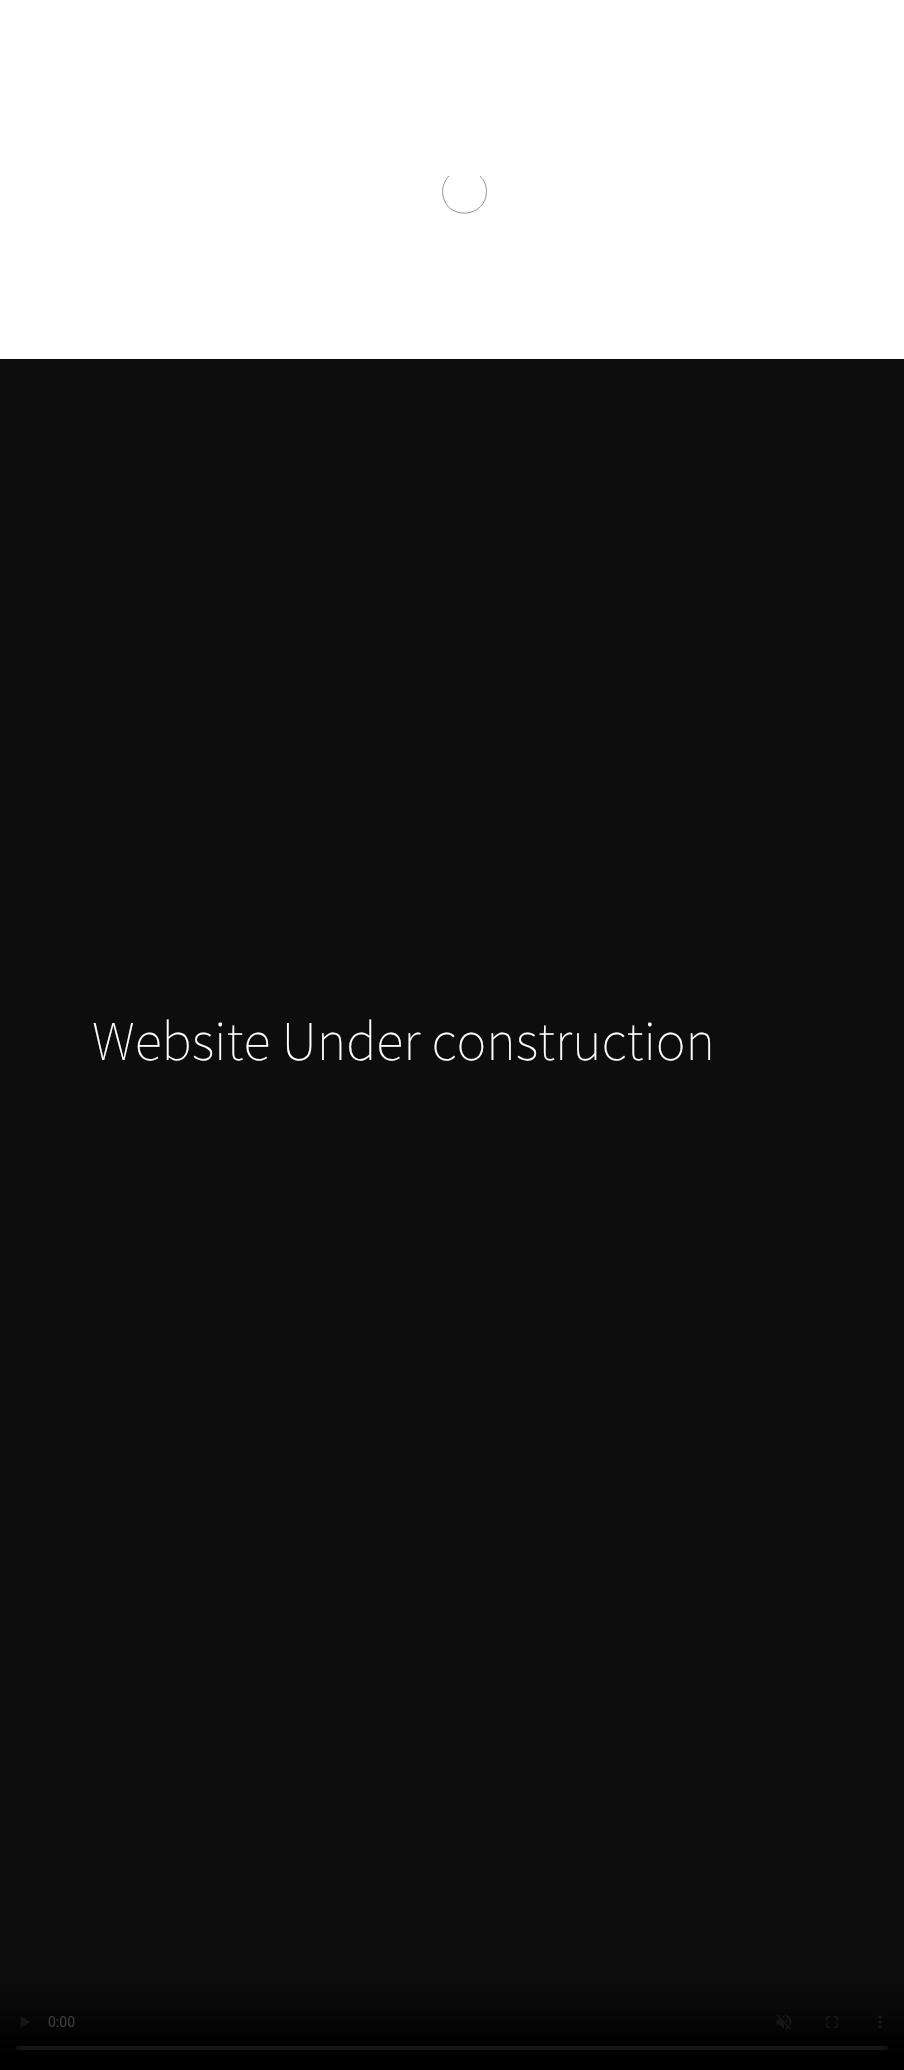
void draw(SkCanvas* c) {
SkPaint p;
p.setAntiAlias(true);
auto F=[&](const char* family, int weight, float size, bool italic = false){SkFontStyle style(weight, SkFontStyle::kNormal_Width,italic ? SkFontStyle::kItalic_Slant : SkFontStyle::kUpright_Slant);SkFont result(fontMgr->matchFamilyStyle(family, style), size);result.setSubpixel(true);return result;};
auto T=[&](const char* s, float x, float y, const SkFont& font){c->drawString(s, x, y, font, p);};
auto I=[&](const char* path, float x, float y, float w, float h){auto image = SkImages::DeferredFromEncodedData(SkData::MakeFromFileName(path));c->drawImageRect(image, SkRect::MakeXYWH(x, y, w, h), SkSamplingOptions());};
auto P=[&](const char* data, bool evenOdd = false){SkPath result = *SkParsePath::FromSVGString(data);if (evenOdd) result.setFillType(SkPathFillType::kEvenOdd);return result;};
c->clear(0xffffffff);
p.setStroke(true);
p.setStrokeWidth(1);
p.setColor(0xff959595);
c->drawPath(P("M480 176c4 4 6.5 9.5 6.5 15.5c0 26-38.5 30-43.5 4.5c-1.5-7.5 1-15 6-20"),p);
I("1.png",0,359,904,1711);
auto f1 = F("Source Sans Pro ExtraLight",200,56);
p.setStroke(false);
p.setColor(0xffffffff);
T("Website Under construction",92,1060,f1);
}
